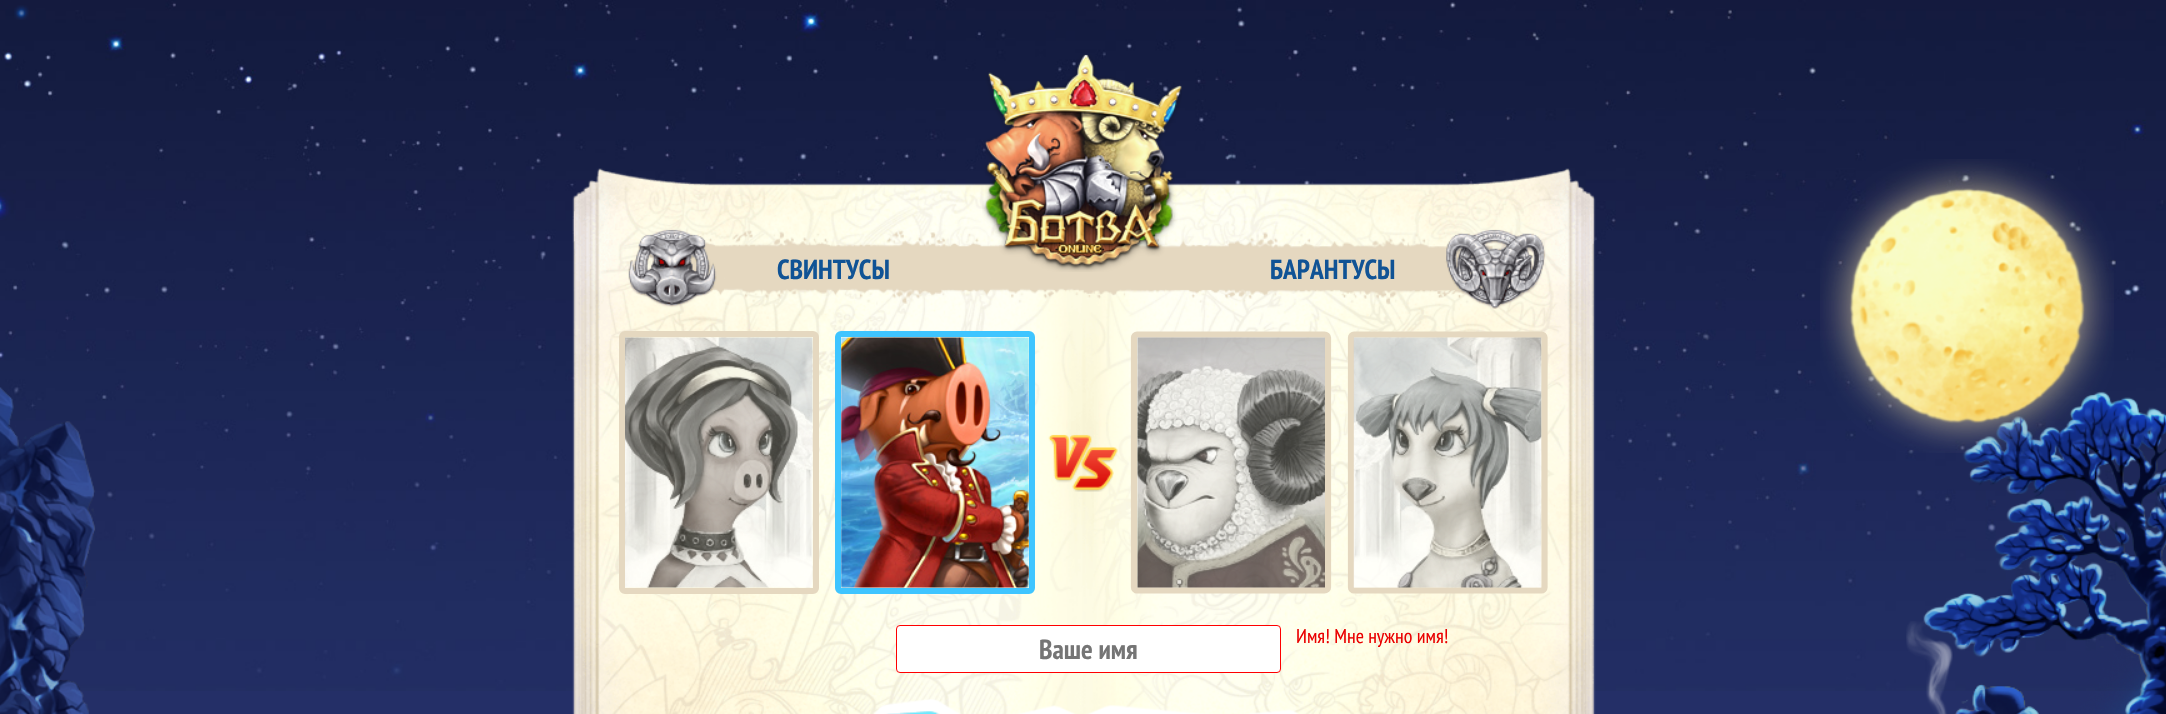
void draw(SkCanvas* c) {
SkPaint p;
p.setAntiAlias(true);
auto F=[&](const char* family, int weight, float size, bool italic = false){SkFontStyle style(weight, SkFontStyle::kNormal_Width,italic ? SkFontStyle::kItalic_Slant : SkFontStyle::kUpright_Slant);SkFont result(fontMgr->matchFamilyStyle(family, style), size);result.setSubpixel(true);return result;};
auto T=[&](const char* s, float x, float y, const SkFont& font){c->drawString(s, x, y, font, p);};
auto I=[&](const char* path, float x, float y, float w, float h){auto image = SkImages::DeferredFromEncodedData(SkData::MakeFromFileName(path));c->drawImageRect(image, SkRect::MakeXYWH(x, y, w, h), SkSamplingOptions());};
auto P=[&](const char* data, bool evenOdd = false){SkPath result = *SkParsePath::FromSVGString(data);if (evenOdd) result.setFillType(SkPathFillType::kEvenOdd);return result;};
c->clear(0xff242f67);
I("1.png",0,0,2166,691);
I("2.png",14,5,15,15);
I("5.png",1923,391,243,323);
I("3.png",1820,159,294,294);
I("4.png",0,387,96,327);
I("6.png",1906,621,47,93);
I("7.png",572,168,1024,546);
auto f1 = F("PT Sans Narrow",700,27.5);
p.setColor(0xff105395);
T("СВИНТУСЫ",777,279,f1);
p.setStroke(true);
p.setStrokeWidth(6);
p.setColor(0xffe5d8c0);
c->drawRoundRect(SkRect::MakeXYWH(622,334,194,257),3,3,p);
I("8.png",625,337,188,251);
p.setColor(0xff3fc5ff);
c->drawRoundRect(SkRect::MakeXYWH(838,334,194,257),3,3,p);
I("9.png",841,337,188,251);
I("10.png",982,54,200,218);
p.setStroke(false);
p.setColor(0xff105395);
T("БАРАНТУСЫ",1270,279,f1);
p.setStroke(true);
p.setStrokeWidth(6.2);
p.setColor(0xffe5d8c0);
c->drawPath(P("M1324.5 334.5h-187.5c-1.5 0-3 1.5-3 3v250c0 1.5 1.5 3 3 3h187.5c2 0 3.5-1.5 3.5-3v-250c0-1.5-1.5-3-3.5-3z"),p);
I("11.png",1137,337,188,251);
c->drawPath(P("M1541.5 334.5h-187.5c-1.5 0-3 1.5-3 3v250c0 1.5 1.5 3 3 3h187.5c1.5 0 3-1.5 3-3v-250c0-1.5-1.5-3-3-3z"),p);
I("12.png",1353,337,189,251);
I("13.png",1048,434,70,58);
p.setStroke(false);
p.setColor(0xffffffff);
c->drawRoundRect(SkRect::MakeXYWH(896.5,625.5,384,47),3.5,3.5,p);
p.setStroke(true);
p.setStrokeWidth(1);
p.setColor(0xffff0000);
c->drawRoundRect(SkRect::MakeXYWH(896.5,625.5,384,47),3.5,3.5,p);
p.setStroke(false);
p.setColor(0xff757575);
T("Ваше имя",1039,659,f1);
auto f2 = F("PT Sans Narrow",400,20);
p.setColor(0xffea0000);
T("Имя! Мне нужно имя!",1296,643,f2);
I("14.png",874,699,425,15);
}
